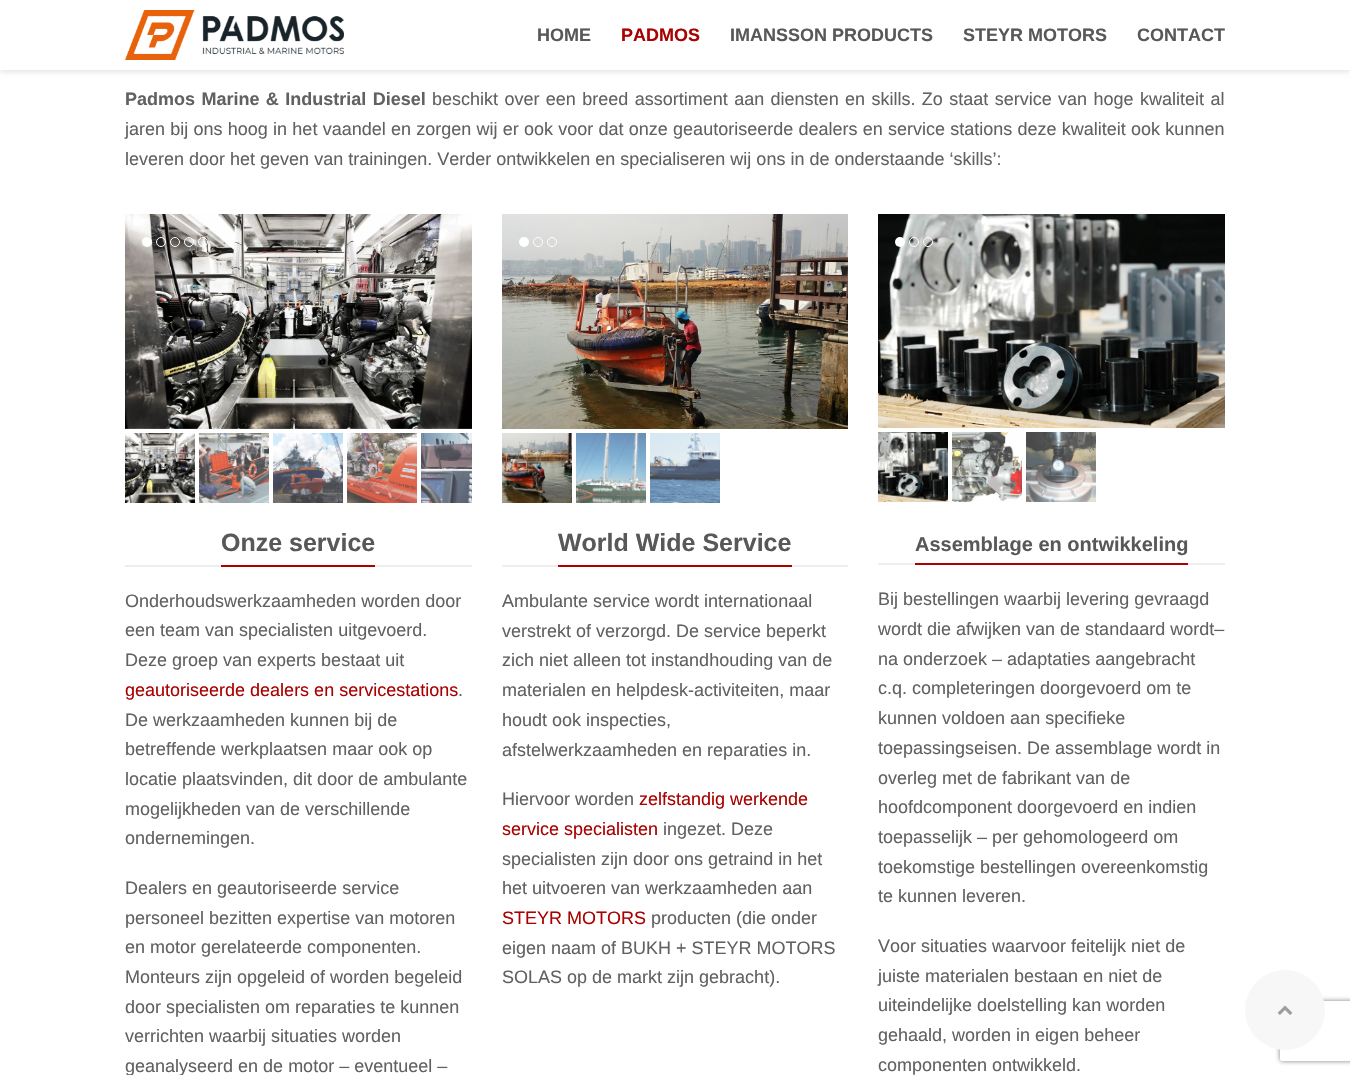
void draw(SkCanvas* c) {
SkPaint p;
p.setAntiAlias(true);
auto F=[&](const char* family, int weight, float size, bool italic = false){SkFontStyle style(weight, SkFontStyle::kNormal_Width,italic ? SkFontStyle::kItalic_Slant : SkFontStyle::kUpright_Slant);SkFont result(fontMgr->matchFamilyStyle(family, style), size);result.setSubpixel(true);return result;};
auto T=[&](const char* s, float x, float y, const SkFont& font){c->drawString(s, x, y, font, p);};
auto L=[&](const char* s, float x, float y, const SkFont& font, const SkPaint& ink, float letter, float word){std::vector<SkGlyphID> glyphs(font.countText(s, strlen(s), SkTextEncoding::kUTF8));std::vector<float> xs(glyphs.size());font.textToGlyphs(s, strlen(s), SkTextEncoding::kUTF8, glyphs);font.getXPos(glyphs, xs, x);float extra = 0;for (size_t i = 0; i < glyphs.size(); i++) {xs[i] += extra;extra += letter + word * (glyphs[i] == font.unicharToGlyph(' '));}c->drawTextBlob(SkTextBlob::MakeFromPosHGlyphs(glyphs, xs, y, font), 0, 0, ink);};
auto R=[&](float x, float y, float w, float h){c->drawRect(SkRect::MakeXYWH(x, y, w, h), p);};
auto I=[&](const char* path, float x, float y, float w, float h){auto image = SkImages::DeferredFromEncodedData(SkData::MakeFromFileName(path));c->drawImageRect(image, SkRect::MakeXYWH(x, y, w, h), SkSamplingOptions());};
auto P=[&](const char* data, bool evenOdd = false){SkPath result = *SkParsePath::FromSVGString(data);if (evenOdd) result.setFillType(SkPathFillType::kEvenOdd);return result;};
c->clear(0xffffffff);
p.setColor(0x1a000000);
p.setMaskFilter(SkMaskFilter::MakeBlur(kNormal_SkBlurStyle, 2.5));
c->drawRect(SkRect::MakeXYWH(0,2,1350,70),p);
p.setMaskFilter(nullptr);
p.setColor(0xffffffff);
R(0,0,1350,70);
I("1.png",125,10,219,50);
auto f1 = F("Liberation Sans",700,18);
p.setColor(0xff585858);
T("HOME",537,41,f1);
p.setColor(0xffaa0201);
T("PADMOS",621,41,f1);
p.setColor(0xff585858);
T("IMANSSON PRODUCTS",730,41,f1);
T("STEYR MOTORS",963,41,f1);
T("CONTACT",1137,41,f1);
p.setColor(0xff616161);
L("Padmos Marine & Industrial Diesel",125,105,f1,p,0,1.4);
auto f2 = F("Liberation Sans",400,18);
L("beschikt over een breed assortiment aan diensten en skills. Zo staat service van hoge kwaliteit al",432,105,f2,p,0,1.4);
L("jaren bij ons hoog in het vaandel en zorgen wij er ook voor dat onze geautoriseerde dealers en service stations deze kwaliteit ook kunnen",125,135,f2,p,0,.25);
T("leveren door het geven van trainingen. Verder ontwikkelen en specialiseren wij ons in de onderstaande ‘skills’:",125,165,f2);
I("2.png",125,214,347,215);
p.setColor(0xffffffff);
c->drawCircle(147,242,5,p);
p.setStroke(true);
p.setStrokeWidth(1);
c->drawCircle(161,242,4.5,p);
c->drawCircle(175,242,4.5,p);
c->drawCircle(189,242,4.5,p);
c->drawCircle(203,242,4.5,p);
I("3.png",125,433,70,70);
I("4.png",199,433,70,70);
I("5.png",273,433,70,70);
I("6.png",347,433,70,70);
I("7.png",421,433,51,70);
p.setStroke(false);
p.setColor(0xffeeeeee);
R(125,565,347,2);
p.setColor(0xffaa0201);
R(221,565,154,2);
auto f3 = F("Liberation Sans",700,25);
p.setColor(0xff585858);
T("Onze service",221,551,f3);
p.setColor(0xff616161);
T("Onderhoudswerkzaamheden worden door",125,607,f2);
T("een team van specialisten uitgevoerd.",125,636,f2);
T("Deze groep van experts bestaat uit",125,666,f2);
p.setColor(0xffaa0201);
T("geautoriseerde dealers en servicestations",125,696,f2);
p.setColor(0xff616161);
T(".",458,696,f2);
T("De werkzaamheden kunnen bij de",125,726,f2);
T("betreffende werkplaatsen maar ook op",125,755,f2);
T("locatie plaatsvinden, dit door de ambulante",125,785,f2);
T("mogelijkheden van de verschillende",125,815,f2);
T("ondernemingen.",125,844,f2);
T("Dealers en geautoriseerde service",125,894,f2);
T("personeel bezitten expertise van motoren",125,924,f2);
T("en motor gerelateerde componenten.",125,953,f2);
T("Monteurs zijn opgeleid of worden begeleid",125,983,f2);
T("door specialisten om reparaties te kunnen",125,1013,f2);
T("verrichten waarbij situaties worden",125,1042,f2);
T("geanalyseerd en de motor – eventueel –",125,1072,f2);
I("8.png",502,214,346,215);
p.setColor(0xffffffff);
c->drawCircle(524,242,5,p);
p.setStroke(true);
c->drawCircle(538,242,4.5,p);
c->drawCircle(552,242,4.5,p);
I("9.png",502,433,70,70);
I("10.png",576,433,70,70);
I("11.png",650,433,70,70);
p.setStroke(false);
p.setColor(0xffeeeeee);
R(502,565,346,2);
p.setColor(0xffaa0201);
R(558,565,234,2);
p.setColor(0xff585858);
T("World Wide Service",558,551,f3);
p.setColor(0xff616161);
T("Ambulante service wordt internationaal",502,607,f2);
T("verstrekt of verzorgd. De service beperkt",502,637,f2);
T("zich niet alleen tot instandhouding van de",502,666,f2);
T("materialen en helpdesk-activiteiten, maar",502,696,f2);
T("houdt ook inspecties,",502,726,f2);
T("afstelwerkzaamheden en reparaties in.",502,756,f2);
T("Hiervoor worden",502,805,f2);
p.setColor(0xffaa0201);
T("zelfstandig werkende",639,805,f2);
T("service specialisten",502,835,f2);
p.setColor(0xff616161);
T("ingezet. Deze",663,835,f2);
T("specialisten zijn door ons getraind in het",502,865,f2);
T("het uitvoeren van werkzaamheden aan",502,894,f2);
p.setColor(0xffaa0201);
T("STEYR MOTORS",502,924,f2);
p.setColor(0xff616161);
T("producten (die onder",651,924,f2);
T("eigen naam of BUKH + STEYR MOTORS",502,954,f2);
T("SOLAS op de markt zijn gebracht).",502,983,f2);
I("12.png",878,214,347,214);
p.setColor(0xffffffff);
c->drawCircle(900,242,5,p);
p.setStroke(true);
c->drawCircle(914,242,4.5,p);
c->drawCircle(928,242,4.5,p);
I("13.png",878,432,70,70);
I("14.png",952,432,70,70);
I("15.png",1026,432,70,70);
p.setStroke(false);
p.setColor(0xffeeeeee);
R(878,563,347,2);
p.setColor(0xffaa0201);
R(915,563,273,2);
auto f4 = F("Liberation Sans",700,20);
p.setColor(0xff585858);
T("Assemblage en ontwikkeling",915,551,f4);
p.setColor(0xff616161);
T("Bij bestellingen waarbij levering gevraagd",878,605,f2);
T("wordt die afwijken van de standaard wordt–",878,635,f2);
T("na onderzoek – adaptaties aangebracht",878,665,f2);
T("c.q. completeringen doorgevoerd om te",878,694,f2);
T("kunnen voldoen aan specifieke",878,724,f2);
T("toepassingseisen. De assemblage wordt in",878,754,f2);
T("overleg met de fabrikant van de",878,784,f2);
T("hoofdcomponent doorgevoerd en indien",878,813,f2);
T("toepasselijk – per gehomologeerd om",878,843,f2);
T("toekomstige bestellingen overeenkomstig",878,873,f2);
T("te kunnen leveren.",878,902,f2);
T("Voor situaties waarvoor feitelijk niet de",878,952,f2);
T("juiste materialen bestaan en niet de",878,982,f2);
T("uiteindelijke doelstelling kan worden",878,1011,f2);
T("gehaald, worden in eigen beheer",878,1041,f2);
T("componenten ontwikkeld.",878,1071,f2);
c->save();
c->clipPath(P("M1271 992h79v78h-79zm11 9h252c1 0 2 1 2 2v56c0 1-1 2-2 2h-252c-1 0-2-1-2-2v-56c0-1 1-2 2-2z",true),true);
p.setColor(0xff808080);
p.setMaskFilter(SkMaskFilter::MakeBlur(kNormal_SkBlurStyle, 2.5));
c->drawRoundRect(SkRect::MakeXYWH(1280,1001,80,60),2,2,p);
p.setMaskFilter(nullptr);
c->restore();
p.setColor(0xfff7f7f7);
c->drawCircle(1285,1010,40,p);
I("16.png",1277,1005,16,10);
}
